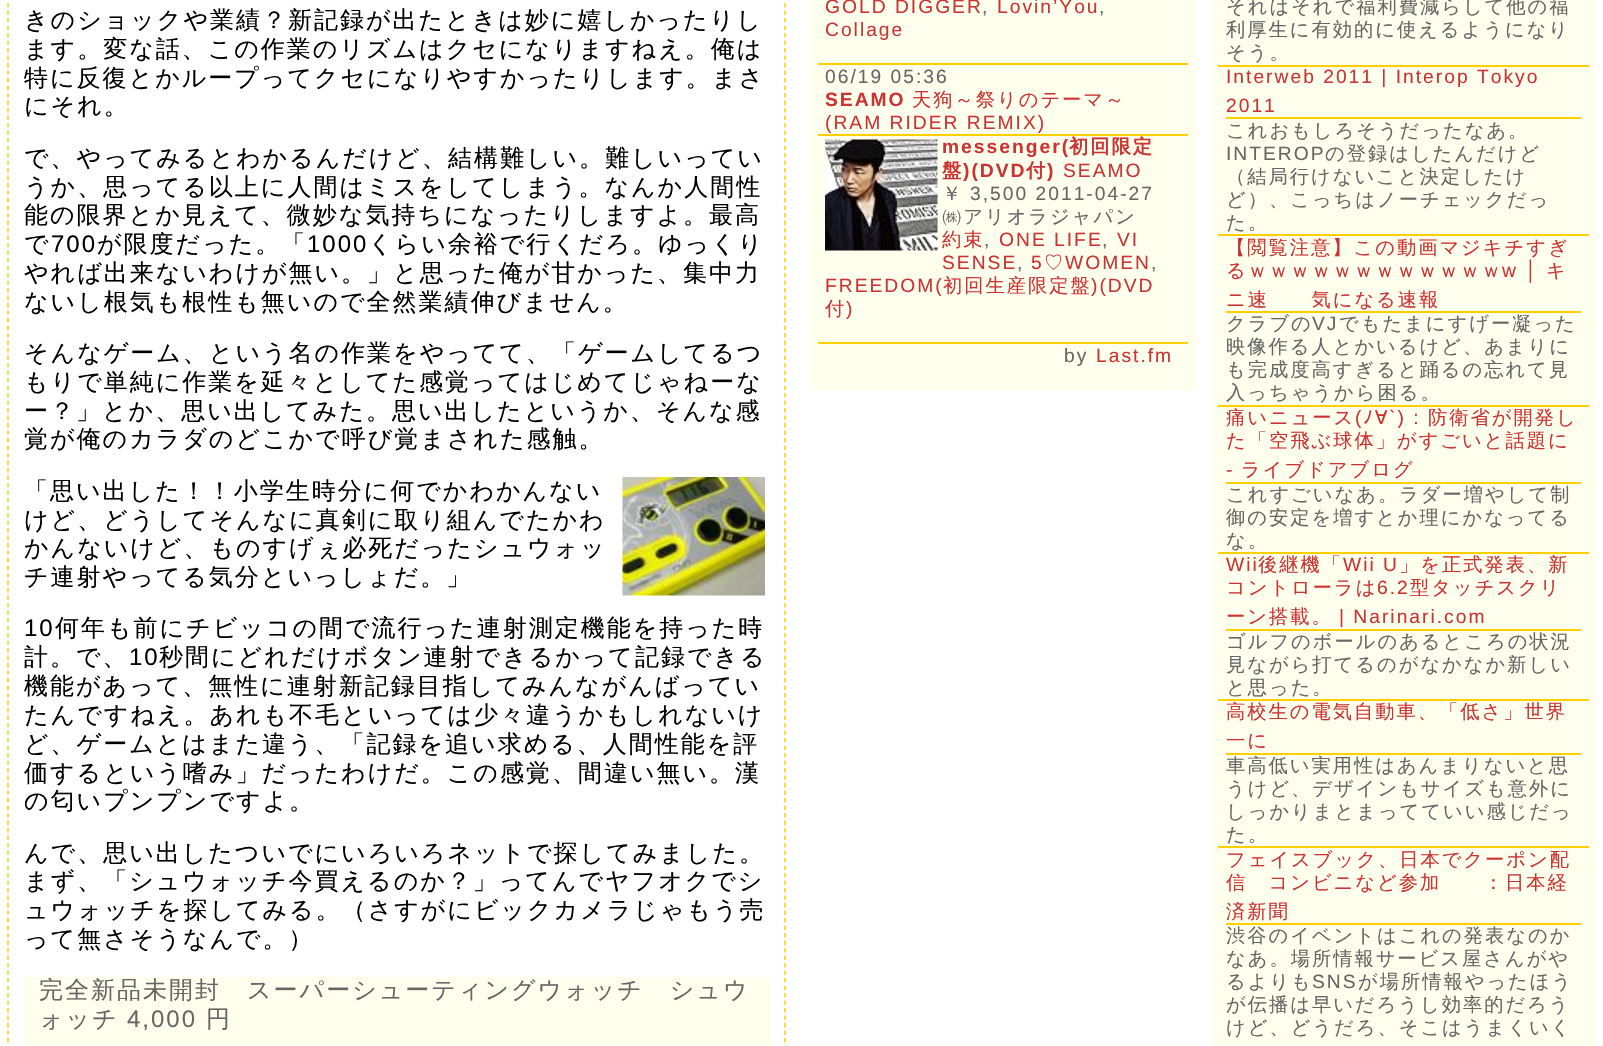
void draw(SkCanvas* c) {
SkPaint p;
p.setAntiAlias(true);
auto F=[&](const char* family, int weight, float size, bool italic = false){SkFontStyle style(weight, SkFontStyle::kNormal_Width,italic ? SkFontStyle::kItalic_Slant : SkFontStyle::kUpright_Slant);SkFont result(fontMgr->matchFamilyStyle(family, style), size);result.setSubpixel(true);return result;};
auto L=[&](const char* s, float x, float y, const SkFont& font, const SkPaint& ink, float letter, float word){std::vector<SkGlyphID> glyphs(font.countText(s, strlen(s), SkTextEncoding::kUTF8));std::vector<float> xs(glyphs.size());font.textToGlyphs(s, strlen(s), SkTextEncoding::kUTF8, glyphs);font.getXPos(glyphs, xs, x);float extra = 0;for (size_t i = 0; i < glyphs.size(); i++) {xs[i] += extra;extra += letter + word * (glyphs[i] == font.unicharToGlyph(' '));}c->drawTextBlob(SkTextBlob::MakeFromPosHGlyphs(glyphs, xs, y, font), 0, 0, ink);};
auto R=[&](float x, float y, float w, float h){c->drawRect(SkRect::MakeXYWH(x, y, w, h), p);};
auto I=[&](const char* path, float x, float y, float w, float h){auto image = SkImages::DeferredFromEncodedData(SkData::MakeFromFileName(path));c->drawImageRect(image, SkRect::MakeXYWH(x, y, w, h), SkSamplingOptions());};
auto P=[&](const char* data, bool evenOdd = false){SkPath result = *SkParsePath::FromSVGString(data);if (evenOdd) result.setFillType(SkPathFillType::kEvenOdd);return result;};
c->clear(0xffffffff);
p.setStroke(true);
p.setStrokeWidth(1.5);
p.setColor(0xffffcf00);
p.setPathEffect(SkDashPathEffect::Make({{4.5f,3}}, 0));
c->drawPath(P("M785-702v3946.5"),p);
p.setPathEffect(nullptr);
p.setPathEffect(SkDashPathEffect::Make({{4.5f,3}}, 0));
c->drawPath(P("M8-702v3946.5"),p);
p.setPathEffect(nullptr);
auto f1 = F("WenQuanYi Zen Hei",500,24);
p.setStroke(false);
p.setColor(0xff000000);
L("きのショックや業績？新記録が出たときは妙に嬉しかったりし",24,28,f1,p,2,0);
L("ます。変な話、この作業のリズムはクセになりますねえ。俺は",24,57,f1,p,2,0);
L("特に反復とかループってクセになりやすかったりします。まさ",24,86,f1,p,2,0);
L("にそれ。",24,114,f1,p,2,0);
L("で、やってみるとわかるんだけど、結構難しい。難しいってい",24,166,f1,p,2,0);
L("うか、思ってる以上に人間はミスをしてしまう。なんか人間性",24,195,f1,p,2,0);
L("能の限界とか見えて、微妙な気持ちになったりしますよ。最高",24,223,f1,p,2,0);
L("で",24,252,f1,p,2,0);
auto f2 = F("Liberation Sans",400,24);
L("700",51,252,f2,p,2,0);
L("が限度だった。「",97,252,f1,p,2,0);
L("1000",307,252,f2,p,2,0);
L("くらい余裕で行くだろ。ゆっくり",368,252,f1,p,2,0);
L("やれば出来ないわけが無い。」と思った俺が甘かった、集中力",24,281,f1,p,2,0);
L("ないし根気も根性も無いので全然業績伸びません。",24,310,f1,p,2,0);
L("そんなゲーム、という名の作業をやってて、「ゲームしてるつ",24,361,f1,p,2,0);
L("もりで単純に作業を延々としてた感覚ってはじめてじゃねーな",24,390,f1,p,2,0);
L("ー？」とか、思い出してみた。思い出したというか、そんな感",24,419,f1,p,2,0);
L("覚が俺のカラダのどこかで呼び覚まされた感触。",24,447,f1,p,2,0);
L("「思い出した！！小学生時分に何でかわかんない",24,499,f1,p,2,0);
L("けど、どうしてそんなに真剣に取り組んでたかわ",24,528,f1,p,2,0);
L("かんないけど、ものすげぇ必死だったシュウォッ",24,556,f1,p,2,0);
L("チ連射やってる気分といっしょだ。」",24,585,f1,p,2,0);
I("1.png",622,477,143,119);
L("10",24,636,f2,p,2,0);
L("何年も前にチビッコの間で流行った連射測定機能を持った時",55,636,f1,p,2,0);
L("計。で、",24,665,f1,p,2,0);
L("10",129,665,f2,p,2,0);
L("秒間にどれだけボタン連射できるかって記録できる",159,665,f1,p,2,0);
L("機能があって、無性に連射新記録目指してみんながんばってい",24,694,f1,p,2,0);
L("たんですねえ。あれも不毛といっては少々違うかもしれないけ",24,723,f1,p,2,0);
L("ど、ゲームとはまた違う、「記録を追い求める、人間性能を評",24,752,f1,p,2,0);
L("価するという嗜み」だったわけだ。この感覚、間違い無い。漢",24,781,f1,p,2,0);
L("の匂いプンプンですよ。",24,809,f1,p,2,0);
L("んで、思い出したついでにいろいろネットで探してみました。",24,861,f1,p,2,0);
L("まず、「シュウォッチ今買えるのか？」ってんでヤフオクでシ",24,889,f1,p,2,0);
L("ュウォッチを探してみる。（さすがにビックカメラじゃもう売",24,918,f1,p,2,0);
L("って無さそうなんで。）",24,947,f1,p,2,0);
p.setColor(0xffffffee);
R(24,977,746,69);
p.setColor(0xff666666);
L("完全新品未開封　スーパーシューティングウォッチ　シュウ",39,998,f1,p,2,0);
L("ォッチ",39,1027,f1,p,2,0);
L("4,000",127,1027,f2,p,2,0);
L("円",206,1027,f1,p,2,0);
p.setColor(0xffffffee);
R(810,0,386,390);
auto f3 = F("Liberation Sans",400,19.25);
p.setColor(0xffcc3333);
L("GOLD DIGGER",825,13,f3,p,2,0);
p.setColor(0xff666666);
L(",",982,13,f3,p,2,0);
p.setColor(0xffcc3333);
L("Lovin’You",997,13,f3,p,2,0);
p.setColor(0xff666666);
L(",",1099,13,f3,p,2,0);
p.setColor(0xffcc3333);
L("Collage",825,36,f3,p,2,0);
p.setColor(0xffffcf00);
R(818,63,370,2);
p.setColor(0xff666666);
L("06/19 05:36",825,83,f3,p,2,0);
auto f4 = F("Liberation Sans",700,19.25);
p.setColor(0xffcc3333);
L("SEAMO",825,106,f4,p,2,0);
auto f5 = F("WenQuanYi Zen Hei",500,19.25);
L("天狗～祭りのテーマ～",912,106,f5,p,2,0);
L("(RAM RIDER REMIX)",825,129,f3,p,2,0);
p.setColor(0xffffcf00);
R(818,134,370,2);
I("2.png",825,139,113,112);
p.setColor(0xffcc3333);
L("messenger(",942,153,f4,p,2,0);
auto f6 = F("WenQuanYi Zen Hei",700,19.25);
L("初回限定",1069,153,f6,p,2,0);
L("盤",942,177,f6,p,2,0);
L(")(DVD",963,177,f4,p,2,0);
L("付",1026,177,f6,p,2,0);
L(")",1047,177,f4,p,2,0);
L("SEAMO",1063,177,f3,p,2,0);
p.setColor(0xff666666);
L("￥",942,200,f5,p,2,0);
L("3,500 2011-04-27",970,200,f3,p,2,0);
L("㈱アリオラジャパン",942,223,f5,p,2,0);
p.setColor(0xffcc3333);
L("約束",942,246,f5,p,2,0);
p.setColor(0xff666666);
L(",",984,246,f3,p,2,0);
p.setColor(0xffcc3333);
L("ONE LIFE",999,246,f3,p,2,0);
p.setColor(0xff666666);
L(",",1102,246,f3,p,2,0);
p.setColor(0xffcc3333);
L("VI",1117,246,f3,p,2,0);
L("SENSE",942,269,f3,p,2,0);
p.setColor(0xff666666);
L(",",1017,269,f3,p,2,0);
p.setColor(0xffcc3333);
L("5",1031,269,f3,p,2,0);
L("♡",1044,269,f5,p,2,0);
L("WOMEN",1065,269,f3,p,2,0);
p.setColor(0xff666666);
L(",",1151,269,f3,p,2,0);
p.setColor(0xffcc3333);
L("FREEDOM(",825,292,f3,p,2,0);
L("初回生産限定盤",943,292,f5,p,2,0);
L(")(DVD",1091,292,f3,p,2,0);
L("付",825,315,f5,p,2,0);
L(")",846,315,f3,p,2,0);
p.setColor(0xffffcf00);
R(818,342,370,2);
p.setColor(0xff666666);
L("by",1064,362,f3,p,2,0);
p.setColor(0xffcc3333);
L("Last.fm",1096,362,f3,p,2,0);
p.setColor(0xffffffee);
R(1211,0,385,1046);
p.setColor(0xff666666);
L("それはそれで福利費減らして他の福",1226,13,f5,p,2,0);
L("利厚生に有効的に使えるようになり",1226,36,f5,p,2,0);
L("そう。",1226,59,f5,p,2,0);
p.setColor(0xffffcf00);
R(1218,65,371,2);
p.setColor(0xffcc3333);
L("Interweb 2011 | Interop Tokyo",1226,83,f3,p,2,0);
L("2011",1226,112,f3,p,2,0);
p.setColor(0xffffcf00);
R(1226,117,355,2);
p.setColor(0xff666666);
L("これおもしろそうだったなあ。",1226,137,f5,p,2,0);
L("INTEROP",1226,160,f3,p,2,0);
L("の登録はしたんだけど",1325,160,f5,p,2,0);
L("（結局行けないこと決定したけ",1226,183,f5,p,2,0);
L("ど）、こっちはノーチェックだっ",1226,206,f5,p,2,0);
L("た。",1226,229,f5,p,2,0);
p.setColor(0xffffcf00);
R(1218,234,371,2);
p.setColor(0xffcc3333);
L("【閲覧注意】この動画マジキチすぎ",1226,254,f5,p,2,0);
L("るｗｗｗｗｗｗｗｗｗｗｗｗ",1226,277,f5,p,2,0);
L("w │",1502,277,f3,p,2,0);
L("キ",1546,277,f5,p,2,0);
L("ニ速　　気になる速報",1226,306,f5,p,2,0);
p.setColor(0xffffcf00);
R(1226,311,355,2);
p.setColor(0xff666666);
L("クラブの",1226,330,f5,p,2,0);
L("VJ",1312,330,f3,p,2,0);
L("でもたまにすげー凝った",1339,330,f5,p,2,0);
L("映像作る人とかいるけど、あまりに",1226,353,f5,p,2,0);
L("も完成度高すぎると踊るの忘れて見",1226,376,f5,p,2,0);
L("入っちゃうから困る。",1226,399,f5,p,2,0);
p.setColor(0xffffcf00);
R(1218,405,371,2);
p.setColor(0xffcc3333);
L("痛いニュース",1226,424,f5,p,2,0);
L("(",1355,424,f3,p,2,0);
auto f7 = F("IPAPGothic",400,19.25);
L("ﾉ",1363,424,f7,p,2,0);
L("∀",1375,424,f5,p,2,0);
L("`) :",1389,424,f3,p,2,0);
L("防衛省が開発し",1428,424,f5,p,2,0);
L("た「空飛ぶ球体」がすごいと話題に",1226,447,f5,p,2,0);
L("-",1226,476,f3,p,2,0);
L("ライブドアブログ",1241,476,f5,p,2,0);
p.setColor(0xffffcf00);
R(1226,482,355,2);
p.setColor(0xff666666);
L("これすごいなあ。ラダー増やして制",1226,501,f5,p,2,0);
L("御の安定を増すとか理にかなってる",1226,524,f5,p,2,0);
L("な。",1226,547,f5,p,2,0);
p.setColor(0xffffcf00);
R(1218,552,371,2);
p.setColor(0xffcc3333);
L("Wii",1226,571,f3,p,2,0);
L("後継機「",1258,571,f5,p,2,0);
L("Wii U",1343,571,f3,p,2,0);
L("」を正式発表、新",1399,571,f5,p,2,0);
L("コントローラは",1226,594,f5,p,2,0);
L("6.2",1377,594,f3,p,2,0);
L("型タッチスクリ",1410,594,f5,p,2,0);
L("ーン搭載。",1226,623,f5,p,2,0);
L("| Narinari.com",1339,623,f3,p,2,0);
p.setColor(0xffffcf00);
R(1226,629,355,2);
p.setColor(0xff666666);
L("ゴルフのボールのあるところの状況",1226,648,f5,p,2,0);
L("見ながら打てるのがなかなか新しい",1226,671,f5,p,2,0);
L("と思った。",1226,694,f5,p,2,0);
p.setColor(0xffffcf00);
R(1218,699,371,2);
p.setColor(0xffcc3333);
L("高校生の電気自動車、「低さ」世界",1226,718,f5,p,2,0);
L("一に",1226,747,f5,p,2,0);
p.setColor(0xffffcf00);
R(1226,753,355,2);
p.setColor(0xff666666);
L("車高低い実用性はあんまりないと思",1226,772,f5,p,2,0);
L("うけど、デザインもサイズも意外に",1226,795,f5,p,2,0);
L("しっかりまとまってていい感じだっ",1226,818,f5,p,2,0);
L("た。",1226,841,f5,p,2,0);
p.setColor(0xffffcf00);
R(1218,846,371,2);
p.setColor(0xffcc3333);
L("フェイスブック、日本でクーポン配",1226,866,f5,p,2,0);
L("信　コンビニなど参加　　：日本経",1226,889,f5,p,2,0);
L("済新聞",1226,918,f5,p,2,0);
p.setColor(0xffffcf00);
R(1226,923,355,2);
p.setColor(0xff666666);
L("渋谷のイベントはこれの発表なのか",1226,942,f5,p,2,0);
L("なあ。場所情報サービス屋さんがや",1226,965,f5,p,2,0);
L("るよりも",1226,988,f5,p,2,0);
L("SNS",1312,988,f3,p,2,0);
L("が場所情報やったほう",1358,988,f5,p,2,0);
L("が伝播は早いだろうし効率的だろう",1226,1011,f5,p,2,0);
L("けど、どうだろ、そこはうまくいく",1226,1034,f5,p,2,0);
}
